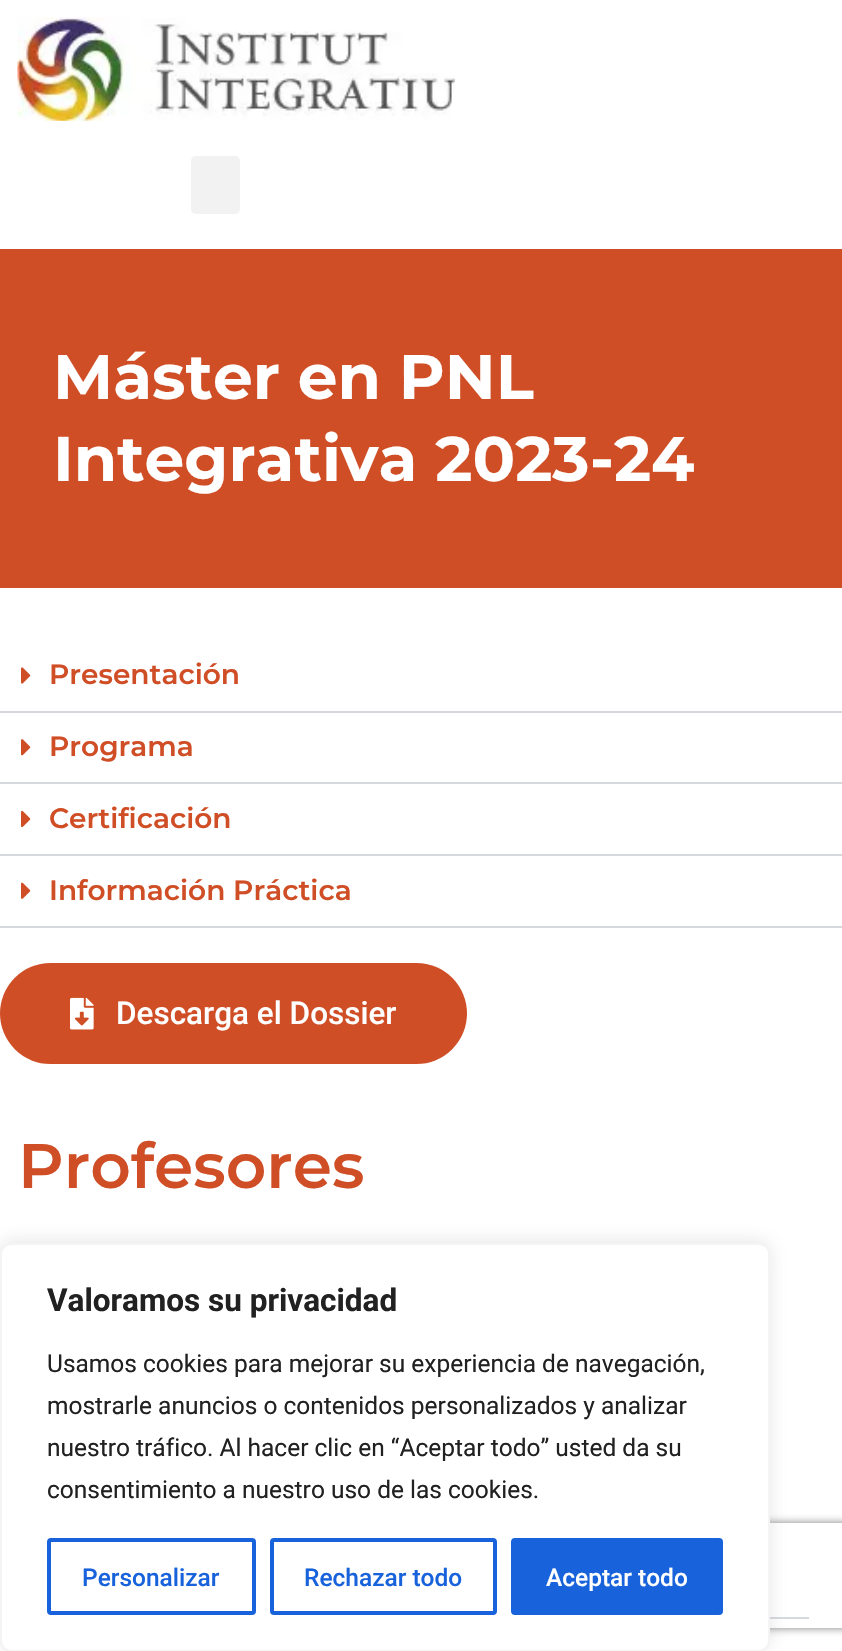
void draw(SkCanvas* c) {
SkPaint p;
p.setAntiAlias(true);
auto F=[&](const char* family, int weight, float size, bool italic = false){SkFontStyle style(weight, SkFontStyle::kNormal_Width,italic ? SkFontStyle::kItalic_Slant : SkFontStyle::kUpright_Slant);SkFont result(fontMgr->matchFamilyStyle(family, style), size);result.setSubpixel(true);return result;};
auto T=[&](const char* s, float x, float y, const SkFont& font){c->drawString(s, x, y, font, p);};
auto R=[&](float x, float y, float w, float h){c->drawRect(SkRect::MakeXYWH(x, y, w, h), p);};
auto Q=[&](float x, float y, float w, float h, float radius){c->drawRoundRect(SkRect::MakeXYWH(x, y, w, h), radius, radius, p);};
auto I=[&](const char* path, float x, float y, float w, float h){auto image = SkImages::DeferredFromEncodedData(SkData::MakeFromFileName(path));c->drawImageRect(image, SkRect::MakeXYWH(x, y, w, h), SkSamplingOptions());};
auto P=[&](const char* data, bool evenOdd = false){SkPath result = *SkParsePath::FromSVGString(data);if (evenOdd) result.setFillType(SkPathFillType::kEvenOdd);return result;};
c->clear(0xffffffff);
I("1.png",17,17,438,104);
p.setColor(0xfff2f2f2);
Q(191,156,49,58,5);
p.setColor(0xffd04e26);
R(0,249,842,339);
auto f1 = F("Montserrat",700,63);
p.setColor(0xffffffff);
T("Máster en PNL",53,399,f1);
T("Integrativa 2023-24",53,481,f1);
p.setColor(0xffd5d8dc);
R(0,711,842,2);
I("2.png",21,667,10,17);
auto f2 = F("Montserrat",600,28);
p.setColor(0xffd04e26);
T("Presentación",49,684,f2);
p.setColor(0xffd5d8dc);
R(0,782,842,2);
I("3.png",21,739,10,17);
p.setColor(0xffd04e26);
T("Programa",49,756,f2);
p.setColor(0xffd5d8dc);
R(0,854,842,2);
I("4.png",21,810,10,18);
p.setColor(0xffd04e26);
T("Certificación",49,828,f2);
p.setColor(0xffd5d8dc);
R(0,926,842,2);
I("5.png",21,882,10,17);
p.setColor(0xffd04e26);
T("Información Práctica",49,900,f2);
Q(0,963,467,101,50.5);
I("6.png",70,997,24,33);
auto f3 = F("Roboto",500,31.5);
p.setColor(0xffffffff);
T("Descarga el Dossier",116,1024,f3);
auto f4 = F("Montserrat",600,63);
p.setColor(0xffd04e26);
T("Profesores",18,1188,f4);
p.setColor(0xffd5d8dc);
R(770,1617,39,2);
p.setColor(0x4dacabab);
p.setMaskFilter(SkMaskFilter::MakeBlur(kNormal_SkBlurStyle, 9));
c->drawRoundRect(SkRect::MakeXYWH(0,1241,770,409),11,11,p);
p.setMaskFilter(nullptr);
c->save();
c->clipPath(P("M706 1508h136v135h-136zm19 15h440c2 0 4 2 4 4v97c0 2-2 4-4 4h-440c-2 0-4-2-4-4v-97c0-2 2-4 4-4z",true),true);
p.setColor(0xff808080);
p.setMaskFilter(SkMaskFilter::MakeBlur(kNormal_SkBlurStyle, 4.5));
c->drawRoundRect(SkRect::MakeXYWH(721,1523,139,105),4,4,p);
p.setMaskFilter(nullptr);
c->restore();
p.setColor(0xffffffff);
c->drawRoundRect(SkRect::MakeXYWH(1,1244,768,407),10,10,p);
p.setStroke(true);
p.setStrokeWidth(2);
p.setColor(0xfff4f4f4);
c->drawRoundRect(SkRect::MakeXYWH(1,1244,768,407),10,10,p);
auto f5 = F("Roboto",700,31.5);
p.setStroke(false);
p.setColor(0xff212121);
T("Valoramos su privacidad",47,1311,f5);
auto f6 = F("Roboto",400,24.5);
T("Usamos cookies para mejorar su experiencia de navegación,",47,1372,f6);
T("mostrarle anuncios o contenidos personalizados y analizar",47,1414,f6);
T("nuestro tráfico. Al hacer clic en “Aceptar todo” usted da su",47,1456,f6);
T("consentimiento a nuestro uso de las cookies.",47,1498,f6);
p.setStroke(true);
p.setStrokeWidth(4);
p.setColor(0xff1863dc);
c->drawRoundRect(SkRect::MakeXYWH(49,1540,205,73),2,2,p);
auto f7 = F("Roboto",500,24.5);
p.setStroke(false);
T("Personalizar",82,1586,f7);
p.setStroke(true);
c->drawRoundRect(SkRect::MakeXYWH(272,1540,223,73),2,2,p);
p.setStroke(false);
T("Rechazar todo",304,1586,f7);
c->drawRoundRect(SkRect::MakeXYWH(513,1540,208,73),2,2,p);
p.setStroke(true);
c->drawRoundRect(SkRect::MakeXYWH(513,1540,208,73),2,2,p);
p.setStroke(false);
p.setColor(0xffffffff);
T("Aceptar todo",546,1586,f7);
}
